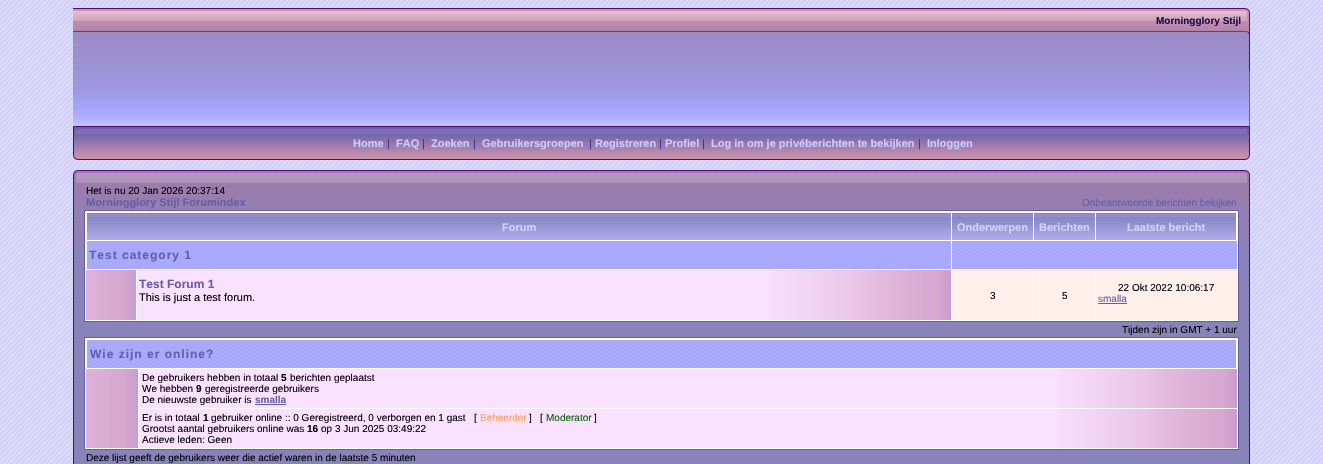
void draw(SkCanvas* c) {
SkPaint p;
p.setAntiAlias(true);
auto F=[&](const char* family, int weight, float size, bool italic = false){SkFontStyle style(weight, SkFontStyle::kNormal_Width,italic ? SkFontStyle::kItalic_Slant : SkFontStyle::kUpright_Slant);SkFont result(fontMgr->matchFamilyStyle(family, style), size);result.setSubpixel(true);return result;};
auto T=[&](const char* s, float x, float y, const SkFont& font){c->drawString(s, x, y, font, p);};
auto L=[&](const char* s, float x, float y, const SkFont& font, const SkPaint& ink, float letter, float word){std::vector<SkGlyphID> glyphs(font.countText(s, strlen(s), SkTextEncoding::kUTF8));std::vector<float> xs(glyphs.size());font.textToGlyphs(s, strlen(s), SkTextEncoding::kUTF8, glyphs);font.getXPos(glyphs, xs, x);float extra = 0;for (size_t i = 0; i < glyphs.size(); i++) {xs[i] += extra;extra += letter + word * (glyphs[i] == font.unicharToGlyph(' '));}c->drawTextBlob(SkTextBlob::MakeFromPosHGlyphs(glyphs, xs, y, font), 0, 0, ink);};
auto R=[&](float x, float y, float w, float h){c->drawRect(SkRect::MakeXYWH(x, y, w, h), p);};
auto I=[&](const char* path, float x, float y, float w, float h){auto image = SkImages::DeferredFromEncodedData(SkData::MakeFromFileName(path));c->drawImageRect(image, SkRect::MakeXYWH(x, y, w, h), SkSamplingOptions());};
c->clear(0xffffffff);
I("1.png",0,0,1323,464);
p.setColor(0xffc2bfff);
R(73,123,1172,3);
I("2.png",73,8,1172,115);
auto f1 = F("Liberation Sans",700,10);
p.setColor(0xff24084d);
T("Morningglory Stijl",1156,24,f1);
I("3.png",1245,8,5,118);
I("4.png",78,126,1167,34);
I("5.png",73,126,5,34);
auto f2 = F("Liberation Sans",700,11);
p.setColor(0xffccccff);
T("Home",353,147,f2);
auto f3 = F("Liberation Sans",400,11);
p.setColor(0xff333399);
T("|",387,147,f3);
p.setColor(0xffccccff);
T("FAQ",396,147,f2);
p.setColor(0xff333399);
T("|",422,147,f3);
p.setColor(0xffccccff);
T("Zoeken",431,147,f2);
p.setColor(0xff333399);
T("|",473,147,f3);
p.setColor(0xffccccff);
T("Gebruikersgroepen",482,147,f2);
p.setColor(0xff333399);
T("|",589,147,f3);
p.setColor(0xffccccff);
T("Registreren",595,147,f2);
p.setColor(0xff333399);
T("|",659,147,f3);
p.setColor(0xffccccff);
T("Profiel",665,147,f2);
p.setColor(0xff333399);
T("|",702,147,f3);
p.setColor(0xffccccff);
T("Log in om je privéberichten te bekijken",711,147,f2);
p.setColor(0xff333399);
T("|",918,147,f3);
p.setColor(0xffccccff);
T("Inloggen",927,147,f2);
I("6.png",1245,126,5,34);
I("7.png",78,170,1167,13);
I("8.png",73,170,5,13);
I("9.png",1245,170,5,13);
p.setColor(0xff8884b9);
R(74,251,1175,213);
I("10.png",74,183,1175,68);
p.setColor(0xff5a0776);
R(1249,183,1,281);
R(73,183,1,281);
auto f4 = F("Liberation Sans",400,10);
p.setColor(0xff000000);
T("Het is nu 20 Jan 2026 20:37:14",86,194,f4);
p.setColor(0xff635dab);
T("Morningglory Stijl Forumindex",86,206,f2);
T("Onbeantwoorde berichten bekijken",1082,206,f4);
p.setColor(0xffffffff);
c->drawRect(SkRect::MakeXYWH(84.5,210.5,1154,111),p);
p.setStroke(true);
p.setStrokeWidth(1);
p.setColor(0xff635dab);
c->drawRect(SkRect::MakeXYWH(84.5,210.5,1154,111),p);
I("11.png",87,213,864,27);
p.setStroke(false);
p.setColor(0xffd4d2ff);
T("Forum",502,231,f2);
I("12.png",952,213,81,27);
T("Onderwerpen",957,231,f2);
I("13.png",1034,213,61,27);
T("Berichten",1039,231,f2);
I("14.png",1096,213,140,27);
T("Laatste bericht",1127,231,f2);
I("15.png",87,241,864,28);
auto f5 = F("Liberation Sans",700,12);
p.setColor(0xff635dab);
L("Test category 1",89,259,f5,p,1,0);
I("16.png",952,241,285,28);
I("17.png",86,270,50,50);
p.setColor(0xfffae1ff);
R(137,270,635,50);
I("18.png",772,270,179,50);
p.setColor(0xff635dab);
T("Test Forum 1",139,288,f5);
p.setColor(0xff000000);
T("This is just a test forum.",139,301,f3);
p.setColor(0xfffff0ec);
R(952,270,81,50);
p.setColor(0xff000000);
T("3",990,299,f4);
p.setColor(0xfffff0ec);
R(1034,270,61,50);
p.setColor(0xff000000);
T("5",1062,299,f4);
p.setColor(0xfffff0ec);
R(1096,270,141,50);
p.setColor(0xff000000);
T("22 Okt 2022 10:06:17",1118,291,f4);
p.setColor(0xff635dab);
T("smalla",1098,302,f4);
R(1098,303,29,1);
p.setColor(0xff000000);
T("Tijden zijn in GMT + 1 uur",1122,333,f4);
p.setColor(0xffffffff);
c->drawRect(SkRect::MakeXYWH(84.5,337.5,1154,112),p);
p.setStroke(true);
p.setColor(0xff635dab);
c->drawRect(SkRect::MakeXYWH(84.5,337.5,1154,112),p);
I("19.png",87,340,1149,28);
p.setStroke(false);
L("Wie zijn er online?",90,358,f5,p,1,0);
I("20.png",86,369,52,79);
p.setColor(0xfffae1ff);
R(139,369,919,39);
I("21.png",1058,369,179,39);
p.setColor(0xff000000);
T("De gebruikers hebben in totaal",142,381,f4);
T("5",281,381,f1);
T("berichten geplaatst",290,381,f4);
T("We hebben",142,392,f4);
T("9",196,392,f1);
T("geregistreerde gebruikers",205,392,f4);
T("De nieuwste gebruiker is",142,403,f4);
p.setColor(0xff635dab);
T("smalla",255,403,f1);
R(255,404,31,1);
p.setColor(0xfffae1ff);
R(139,409,919,39);
I("21.png",1058,409,179,39);
p.setColor(0xff000000);
T("Er is in totaal",142,421,f4);
T("1",203,421,f1);
T("gebruiker online :: 0 Geregistreerd, 0 verborgen en 1 gast   [",211,421,f4);
p.setColor(0xffffa34f);
T("Beheerder",480,421,f4);
p.setColor(0xff000000);
T("]   [",529,421,f4);
p.setColor(0xff006600);
T("Moderator",546,421,f4);
p.setColor(0xff000000);
T("]",594,421,f4);
T("Grootst aantal gebruikers online was",142,432,f4);
T("16",307,432,f1);
T("op 3 Jun 2025 03:49:22",321,432,f4);
T("Actieve leden: Geen",142,443,f4);
T("Deze lijst geeft de gebruikers weer die actief waren in de laatste 5 minuten",86,461,f4);
}
